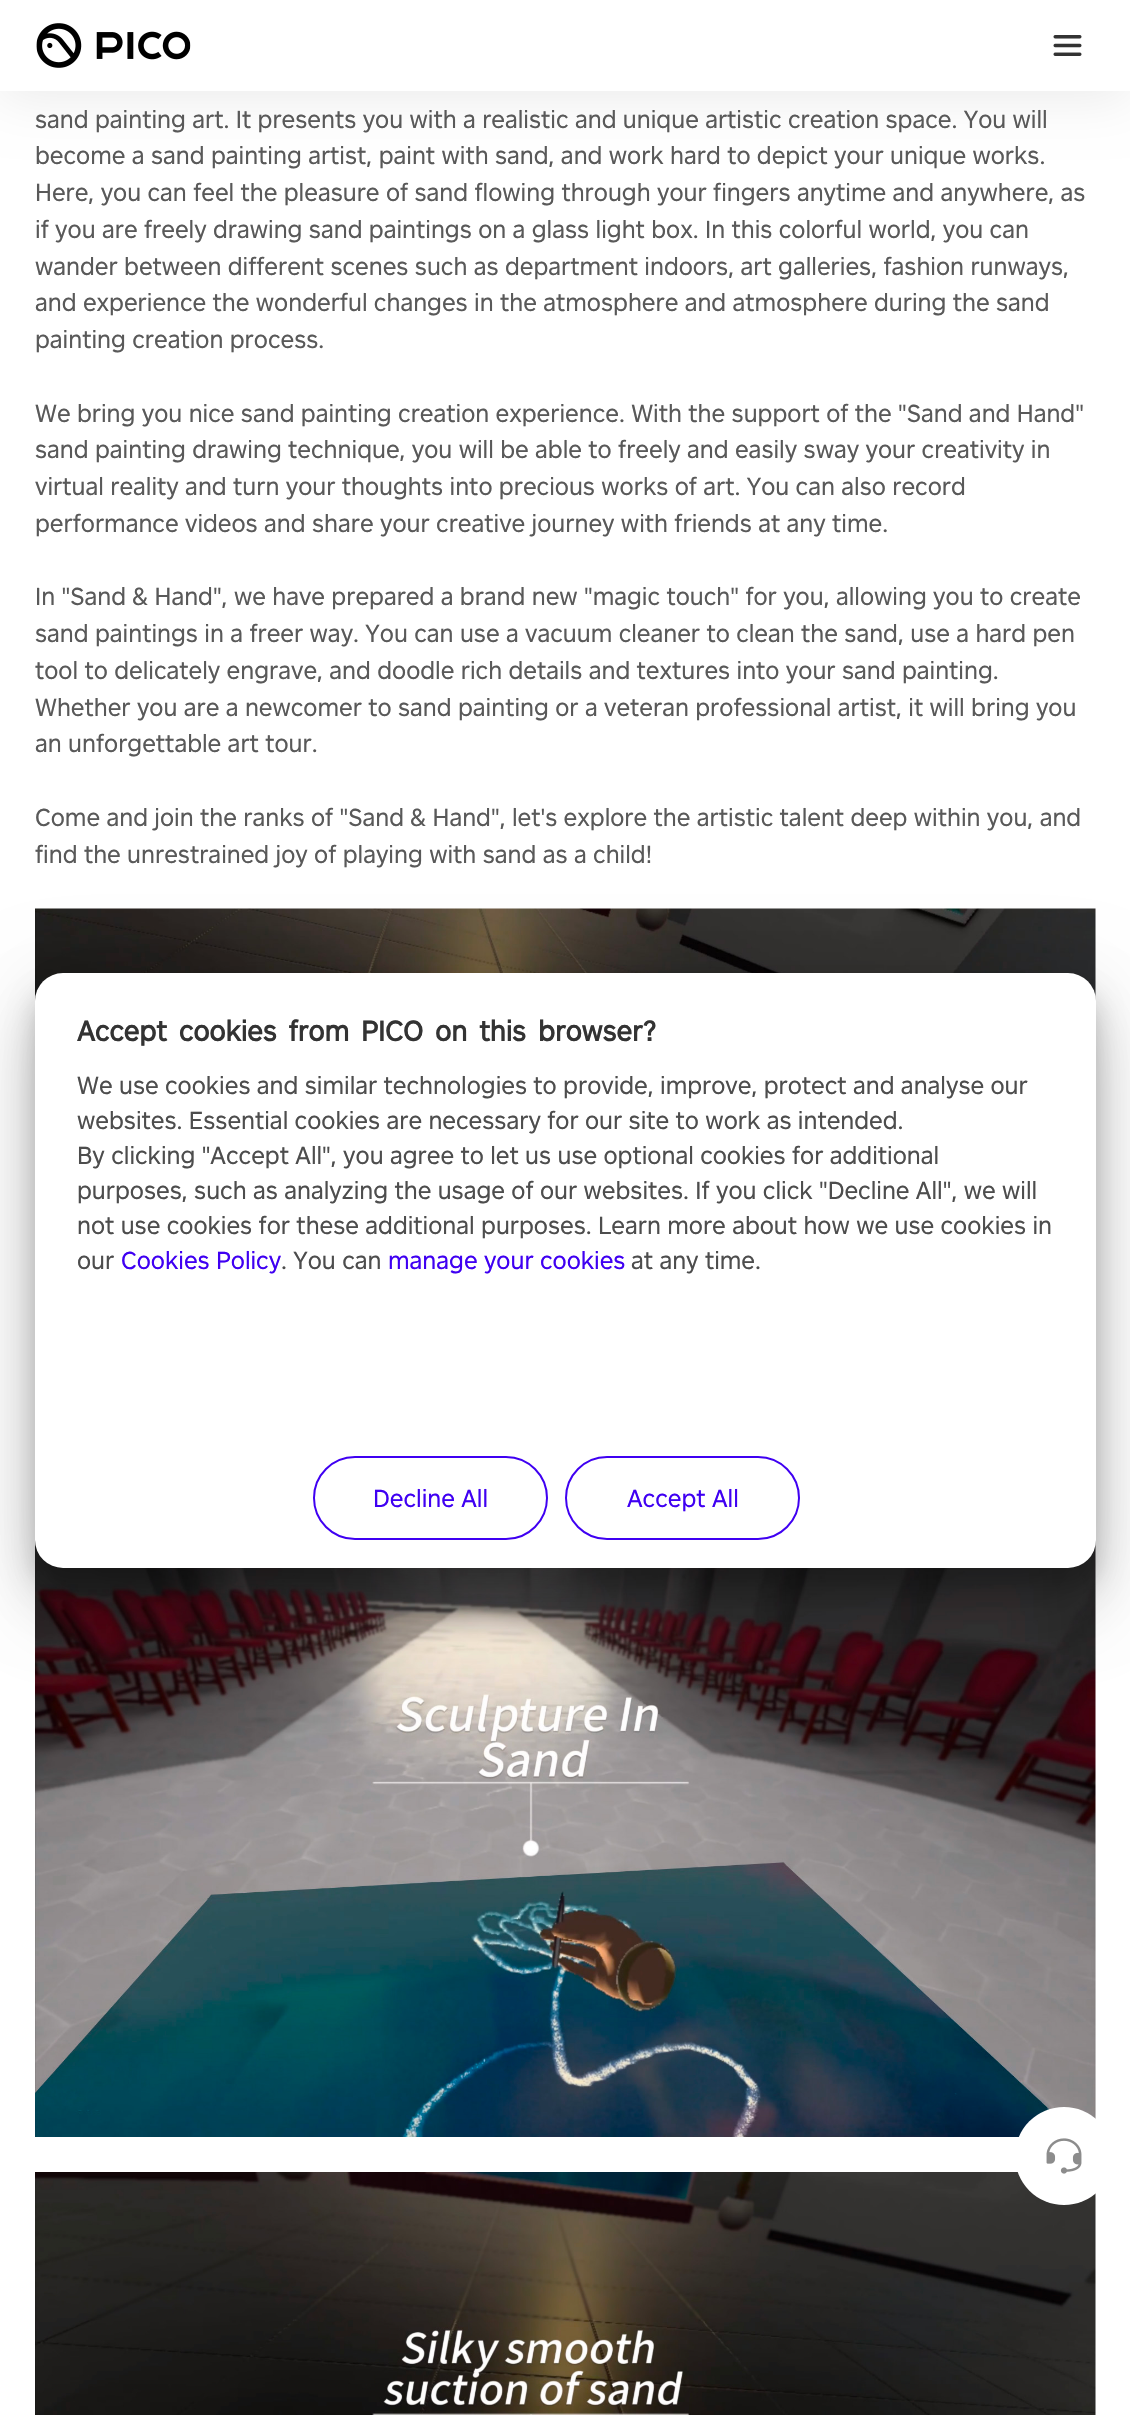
void draw(SkCanvas* c) {
SkPaint p;
p.setAntiAlias(true);
auto F=[&](const char* family, int weight, float size, bool italic = false){SkFontStyle style(weight, SkFontStyle::kNormal_Width,italic ? SkFontStyle::kItalic_Slant : SkFontStyle::kUpright_Slant);SkFont result(fontMgr->matchFamilyStyle(family, style), size);result.setSubpixel(true);return result;};
auto T=[&](const char* s, float x, float y, const SkFont& font){c->drawString(s, x, y, font, p);};
auto L=[&](const char* s, float x, float y, const SkFont& font, const SkPaint& ink, float letter, float word){std::vector<SkGlyphID> glyphs(font.countText(s, strlen(s), SkTextEncoding::kUTF8));std::vector<float> xs(glyphs.size());font.textToGlyphs(s, strlen(s), SkTextEncoding::kUTF8, glyphs);font.getXPos(glyphs, xs, x);float extra = 0;for (size_t i = 0; i < glyphs.size(); i++) {xs[i] += extra;extra += letter + word * (glyphs[i] == font.unicharToGlyph(' '));}c->drawTextBlob(SkTextBlob::MakeFromPosHGlyphs(glyphs, xs, y, font), 0, 0, ink);};
auto R=[&](float x, float y, float w, float h){c->drawRect(SkRect::MakeXYWH(x, y, w, h), p);};
auto Q=[&](float x, float y, float w, float h, float radius){c->drawRoundRect(SkRect::MakeXYWH(x, y, w, h), radius, radius, p);};
auto I=[&](const char* path, float x, float y, float w, float h){auto image = SkImages::DeferredFromEncodedData(SkData::MakeFromFileName(path));c->drawImageRect(image, SkRect::MakeXYWH(x, y, w, h), SkSamplingOptions());};
c->clear(0xffffffff);
p.setColor(0x14000000);
p.setMaskFilter(SkMaskFilter::MakeBlur(kNormal_SkBlurStyle, 26));
c->drawRect(SkRect::MakeXYWH(0,7,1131,91),p);
p.setMaskFilter(nullptr);
p.setColor(0xffffffff);
R(0,0,1130,91);
I("1.png",36,23,155,45);
I("2.png",1053,35,29,21);
auto f1 = F("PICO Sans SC",400,24.5);
p.setColor(0xff595959);
T("sand painting art. It presents you with a realistic and unique artistic creation space. You will",35,128,f1);
T("become a sand painting artist, paint with sand, and work hard to depict your unique works.",35,164,f1);
T("Here, you can feel the pleasure of sand flowing through your fingers anytime and anywhere, as",35,201,f1);
T("if you are freely drawing sand paintings on a glass light box. In this colorful world, you can",35,238,f1);
T("wander between different scenes such as department indoors, art galleries, fashion runways,",35,275,f1);
T("and experience the wonderful changes in the atmosphere and atmosphere during the sand",35,311,f1);
T("painting creation process.",35,348,f1);
T("We bring you nice sand painting creation experience. With the support of the \"Sand and Hand\"",35,422,f1);
T("sand painting drawing technique, you will be able to freely and easily sway your creativity in",35,458,f1);
T("virtual reality and turn your thoughts into precious works of art. You can also record",35,495,f1);
T("performance videos and share your creative journey with friends at any time.",35,532,f1);
T("In \"Sand & Hand\", we have prepared a brand new \"magic touch\" for you, allowing you to create",35,605,f1);
T("sand paintings in a freer way. You can use a vacuum cleaner to clean the sand, use a hard pen",35,642,f1);
T("tool to delicately engrave, and doodle rich details and textures into your sand painting.",35,679,f1);
T("Whether you are a newcomer to sand painting or a veteran professional artist, it will bring you",35,716,f1);
T("an unforgettable art tour.",35,752,f1);
T("Come and join the ranks of \"Sand & Hand\", let's explore the artistic talent deep within you, and",35,826,f1);
T("find the unrestrained joy of playing with sand as a child!",35,863,f1);
I("3.png",35,908,1061,93);
I("4.png",35,1540,1061,597);
I("5.png",35,2172,1061,243);
p.setColor(0x33000000);
p.setMaskFilter(SkMaskFilter::MakeBlur(kNormal_SkBlurStyle, 13));
c->drawRoundRect(SkRect::MakeXYWH(35,992,1061,595),28,28,p);
p.setMaskFilter(nullptr);
p.setColor(0x1f000000);
p.setMaskFilter(SkMaskFilter::MakeBlur(kNormal_SkBlurStyle, 40));
c->drawRoundRect(SkRect::MakeXYWH(35,989,1061,595),28,28,p);
p.setMaskFilter(nullptr);
p.setColor(0x24000000);
p.setMaskFilter(SkMaskFilter::MakeBlur(kNormal_SkBlurStyle, 33));
c->drawRoundRect(SkRect::MakeXYWH(35,1015,1061,595),28,28,p);
p.setMaskFilter(nullptr);
p.setColor(0xffffffff);
Q(35,973,1061,595,28);
auto f2 = F("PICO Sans",700,28);
p.setColor(0xff333333);
L("Accept cookies from PICO on this browser?",77,1041,f2,p,0,4.75);
auto f3 = F("PICO Sans",400,24.5);
p.setColor(0xff4d4d4d);
T("We use cookies and similar technologies to provide, improve, protect and analyse our",77,1094,f3);
T("websites. Essential cookies are necessary for our site to work as intended.",77,1129,f3);
T("By clicking \"Accept All\", you agree to let us use optional cookies for additional",77,1164,f3);
T("purposes, such as analyzing the usage of our websites. If you click \"Decline All\", we will",77,1199,f3);
T("not use cookies for these additional purposes. Learn more about how we use cookies in",77,1234,f3);
T("our",77,1269,f3);
p.setColor(0xff3f00f2);
T("Cookies Policy",121,1269,f3);
p.setColor(0xff4d4d4d);
T(". You can",281,1269,f3);
p.setColor(0xff3f00f2);
T("manage your cookies",388,1269,f3);
p.setColor(0xff4d4d4d);
T("at any time.",631,1269,f3);
p.setStroke(true);
p.setStrokeWidth(2);
p.setColor(0xff3f00f2);
c->drawRoundRect(SkRect::MakeXYWH(314,1457,233,82),41,41,p);
p.setStroke(false);
T("Decline All",373,1507,f3);
p.setStroke(true);
c->drawRoundRect(SkRect::MakeXYWH(566,1457,233,82),41,41,p);
p.setStroke(false);
T("Accept All",627,1507,f3);
p.setColor(0xffffffff);
c->drawCircle(1064,2156,49,p);
I("6.png",1046,2138,36,36);
}
